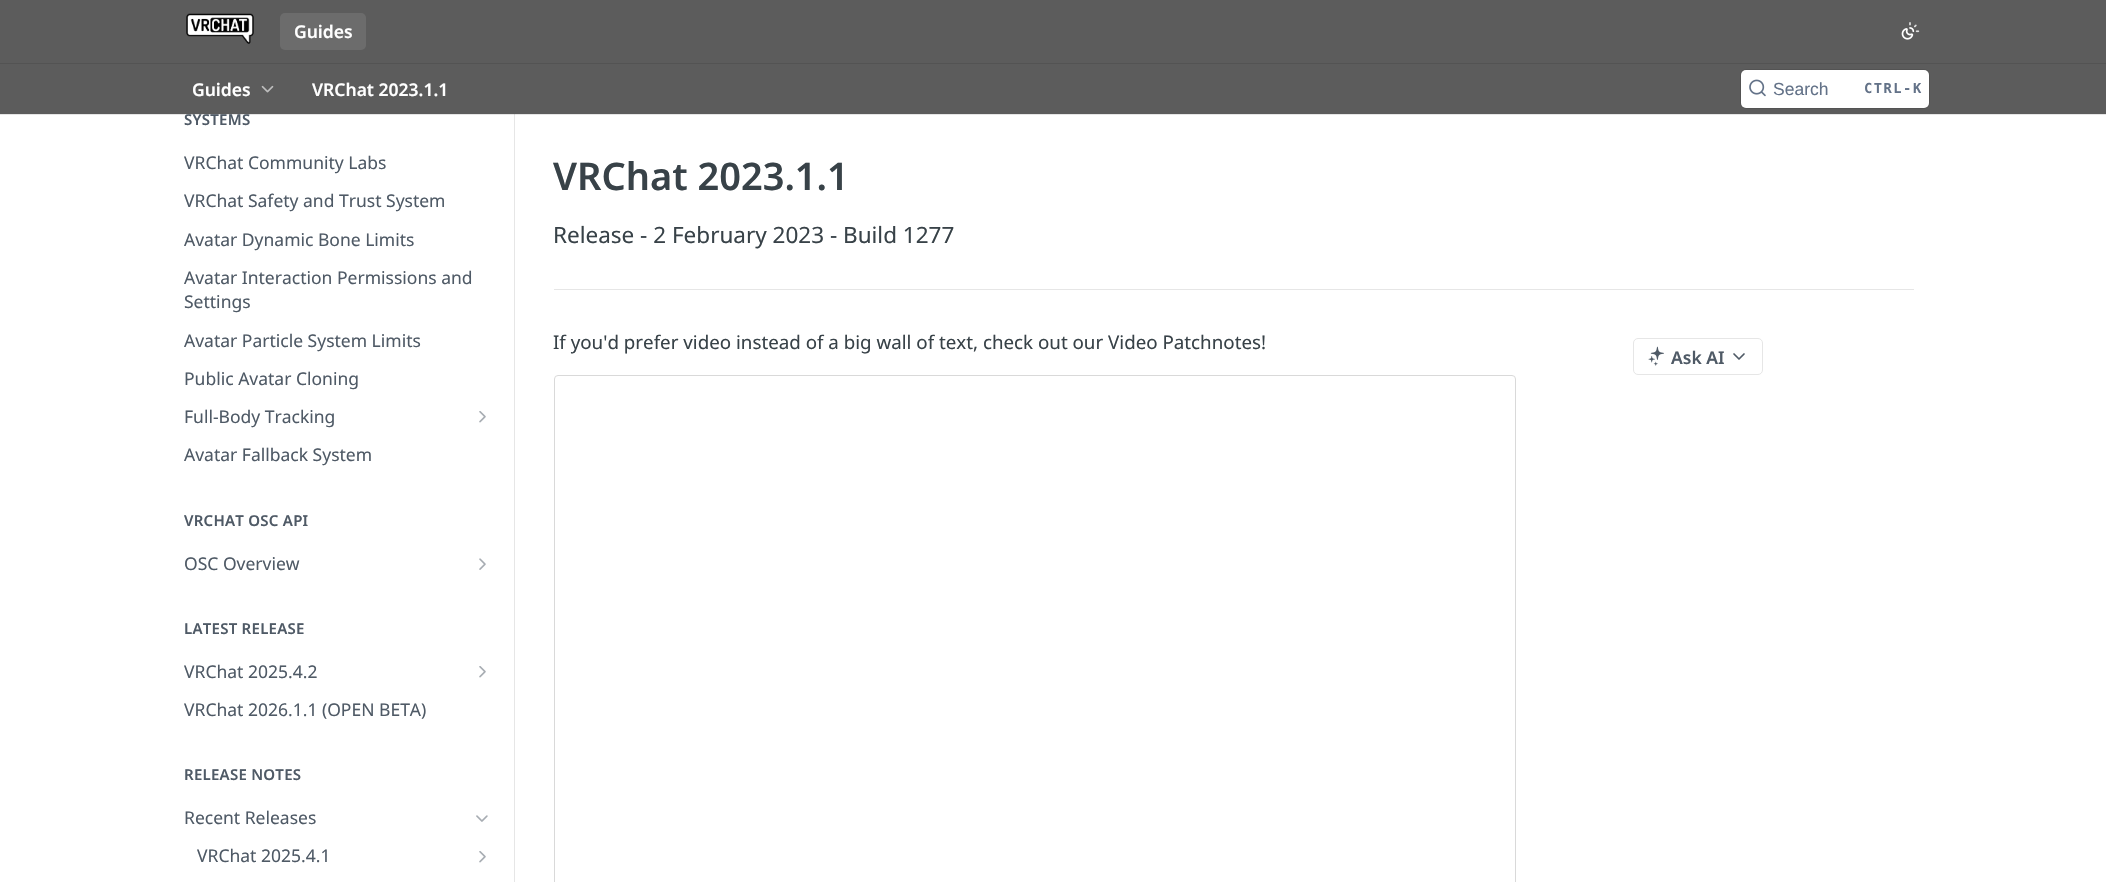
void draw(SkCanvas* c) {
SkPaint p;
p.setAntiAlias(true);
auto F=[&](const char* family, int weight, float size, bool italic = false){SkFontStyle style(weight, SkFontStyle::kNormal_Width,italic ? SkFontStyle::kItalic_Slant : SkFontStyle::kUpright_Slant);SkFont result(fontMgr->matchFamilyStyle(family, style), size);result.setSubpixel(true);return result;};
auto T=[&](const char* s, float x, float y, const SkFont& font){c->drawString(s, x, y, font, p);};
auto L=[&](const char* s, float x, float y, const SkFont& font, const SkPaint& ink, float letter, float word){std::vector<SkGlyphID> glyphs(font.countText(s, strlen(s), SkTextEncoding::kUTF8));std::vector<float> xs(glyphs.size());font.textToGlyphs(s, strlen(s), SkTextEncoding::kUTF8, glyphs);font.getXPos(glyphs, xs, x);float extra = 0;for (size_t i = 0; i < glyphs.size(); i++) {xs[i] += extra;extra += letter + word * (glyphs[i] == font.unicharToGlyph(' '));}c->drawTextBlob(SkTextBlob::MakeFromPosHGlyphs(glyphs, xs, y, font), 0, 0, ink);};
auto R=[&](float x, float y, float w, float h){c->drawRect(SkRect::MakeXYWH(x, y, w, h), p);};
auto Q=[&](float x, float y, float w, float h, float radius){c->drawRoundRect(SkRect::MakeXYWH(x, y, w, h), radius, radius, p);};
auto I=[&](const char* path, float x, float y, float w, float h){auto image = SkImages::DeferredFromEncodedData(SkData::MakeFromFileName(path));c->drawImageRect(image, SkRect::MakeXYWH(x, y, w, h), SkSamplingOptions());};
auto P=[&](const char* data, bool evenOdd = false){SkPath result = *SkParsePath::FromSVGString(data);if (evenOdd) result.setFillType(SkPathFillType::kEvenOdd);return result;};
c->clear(0xffffffff);
p.setColor(0xffe6e6e6);
R(514,114,1,768);
p.setColor(0x1a000000);
R(0,114,2106,1);
p.setColor(0xff5c5c5c);
R(0,0,2106,114);
p.setColor(0xff535353);
R(0,63,2106,1);
I("1.png",186,13,68,31);
p.setColor(0xff6c6c6c);
Q(280,13,86,37,5);
auto f1 = F("Noto Sans",600,17.5);
p.setColor(0xffffffff);
T("Guides",294,38,f1);
I("2.png",1901,22,19,18);
T("Guides",192,96,f1);
I("3.png",261,85,13,8);
T("VRChat 2023.1.1",312,96,f1);
p.setStroke(true);
p.setStrokeWidth(1);
p.setColor(0xff535353);
c->drawRoundRect(SkRect::MakeXYWH(1740.5,69.5,189,39),5.5,5.5,p);
p.setStroke(false);
p.setColor(0xffffffff);
Q(1741,70,188,38,5);
I("4.png",1749,79,17,18);
auto f2 = F("Liberation Sans",400,17.5);
p.setColor(0xff637288);
T("Search",1773,95,f2);
auto f3 = F("DejaVu Sans Mono",700,13.75);
L("CTRL-K",1864,93,f3,p,1.5,0);
auto f4 = F("Noto Sans",600,15);
p.setColor(0xff4f5a66);
L("SYSTEMS",184,125,f4,p,.25,0);
auto f5 = F("Noto Sans",400,17.5);
T("VRChat Community Labs",184,169,f5);
T("VRChat Safety and Trust System",184,207,f5);
T("Avatar Dynamic Bone Limits",184,246,f5);
T("Avatar Interaction Permissions and",184,284,f5);
T("Settings",184,308,f5);
T("Avatar Particle System Limits",184,347,f5);
T("Public Avatar Cloning",184,385,f5);
T("Full-Body Tracking",184,423,f5);
I("5.png",479,411,7,12);
T("Avatar Fallback System",184,461,f5);
L("VRCHAT OSC API",184,526,f4,p,.25,0);
T("OSC Overview",184,570,f5);
I("6.png",479,558,7,12);
L("LATEST RELEASE",184,634,f4,p,.25,0);
T("VRChat 2025.4.2",184,678,f5);
I("5.png",479,666,7,12);
T("VRChat 2026.1.1 (OPEN BETA)",184,716,f5);
L("RELEASE NOTES",184,780,f4,p,.25,0);
T("Recent Releases",184,824,f5);
I("7.png",476,815,12,7);
T("VRChat 2025.4.1",197,862,f5);
I("5.png",479,851,7,12);
p.setColor(0xffe6e6e6);
R(554,289,1360,1);
auto f6 = F("Noto Sans",600,38);
p.setColor(0xff384248);
T("VRChat 2023.1.1",553,190,f6);
auto f7 = F("Noto Sans",400,22.5);
T("Release - 2 February 2023 - Build 1277",553,243,f7);
auto f8 = F("Noto Sans",400,18.75);
T("If you'd prefer video instead of a big wall of text, check out our Video Patchnotes!",553,349,f8);
p.setStroke(true);
p.setColor(0xffd9d9d9);
c->drawRoundRect(SkRect::MakeXYWH(554.5,375.5,961,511),3.5,3.5,p);
p.setColor(0xffe6e6e6);
c->drawRoundRect(SkRect::MakeXYWH(1633.5,338.5,129,36),4.5,4.5,p);
I("8.png",1648,346,16,20);
p.setStroke(false);
p.setColor(0xff4f5a66);
T("Ask AI",1671,364,f1);
p.setStroke(true);
p.setStrokeWidth(1.7);
p.setStrokeCap(SkPaint::kRound_Cap);
p.setStrokeJoin(SkPaint::kRound_Join);
c->drawPath(P("M1734 354l5 5l5-5"),p);
}
